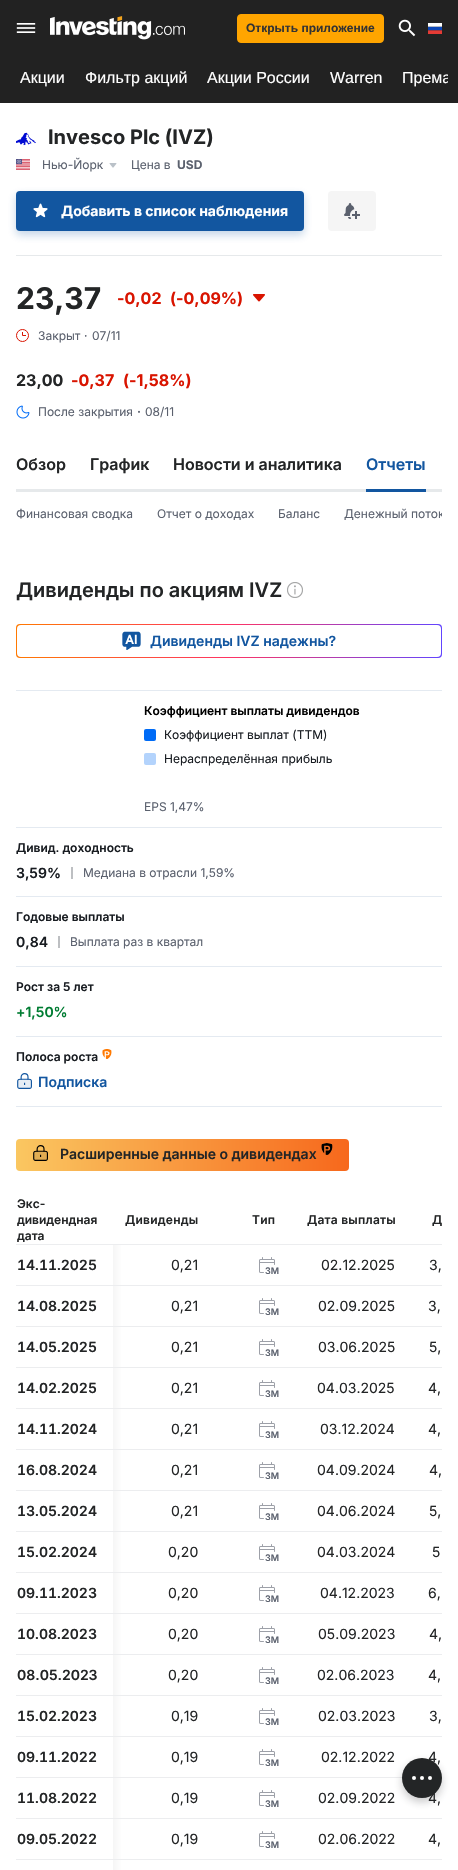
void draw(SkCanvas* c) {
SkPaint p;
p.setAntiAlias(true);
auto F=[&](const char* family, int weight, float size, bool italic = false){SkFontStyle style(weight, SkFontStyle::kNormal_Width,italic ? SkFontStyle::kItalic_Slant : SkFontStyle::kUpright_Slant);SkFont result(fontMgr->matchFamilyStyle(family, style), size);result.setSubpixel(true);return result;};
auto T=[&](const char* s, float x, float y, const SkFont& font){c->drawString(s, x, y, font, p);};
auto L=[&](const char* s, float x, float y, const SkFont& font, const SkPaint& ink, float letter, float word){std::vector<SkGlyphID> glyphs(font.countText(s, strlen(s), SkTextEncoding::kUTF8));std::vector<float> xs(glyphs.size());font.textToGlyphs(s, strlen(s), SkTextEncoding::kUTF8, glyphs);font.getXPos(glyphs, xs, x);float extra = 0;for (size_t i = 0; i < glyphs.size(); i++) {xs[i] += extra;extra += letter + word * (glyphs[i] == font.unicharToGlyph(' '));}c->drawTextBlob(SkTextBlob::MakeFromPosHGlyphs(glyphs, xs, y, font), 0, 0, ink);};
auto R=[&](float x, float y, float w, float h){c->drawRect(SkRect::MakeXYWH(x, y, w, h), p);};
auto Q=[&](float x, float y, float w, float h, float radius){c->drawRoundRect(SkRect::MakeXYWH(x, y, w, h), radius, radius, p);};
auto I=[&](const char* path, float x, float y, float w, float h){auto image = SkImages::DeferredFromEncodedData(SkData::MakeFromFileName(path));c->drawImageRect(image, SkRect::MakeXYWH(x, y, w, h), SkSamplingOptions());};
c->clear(0xffffffff);
p.setColor(0xff222222);
R(0,0,458,103);
I("1.png",16,23,20,10);
I("2.png",50,16,135,24);
p.setColor(0xffffa500);
c->drawRoundRect(SkRect::MakeXYWH(237.5,14.5,146,28),3.5,3.5,p);
p.setStroke(true);
p.setStrokeWidth(1);
c->drawRoundRect(SkRect::MakeXYWH(237.5,14.5,146,28),3.5,3.5,p);
auto f1 = F("Liberation Sans",700,12);
p.setStroke(false);
p.setColor(0xff333333);
T("Открыть приложение",246,32,f1);
I("3.png",398,19,18,18);
I("4.png",428,23,14,11);
auto f2 = F("Liberation Sans",400,16);
p.setColor(0xffffffff);
T("Акции",20,83,f2);
T("Фильтр акций",85,83,f2);
T("Акции России",207,83,f2);
T("Warren",330,83,f2);
c->save();
c->clipRect(SkRect::MakeXYWH(10,56,438,47));
T("Према",402,83,f2);
c->restore();
I("5.png",16,132,20,14);
auto f3 = F("Inter",700,20);
p.setColor(0xff232526);
T("Invesco Plc (IVZ)",48,144,f3);
I("6.png",16,159,14,11);
auto f4 = F("Inter",400,12);
p.setColor(0xff5b616e);
T("Нью-Йорк",42,169,f4);
I("7.png",109,163,8,5);
T("Цена в",131,169,f4);
auto f5 = F("Inter",700,12);
T("USD",177,169,f5);
p.setColor(0x401256a0);
p.setMaskFilter(SkMaskFilter::MakeBlur(kNormal_SkBlurStyle, 4));
c->drawRoundRect(SkRect::MakeXYWH(16,195,288,40),4,4,p);
p.setMaskFilter(nullptr);
p.setColor(0xff1256a0);
Q(16,191,288,40,4);
I("8.png",33,203,15,15);
auto f6 = F("Inter",700,14);
p.setColor(0xffffffff);
T("Добавить в список наблюдения",61,216,f6);
p.setColor(0xfff5f5f5);
Q(328,191,48,40,4);
I("9.png",344,203,16,16);
p.setColor(0xffe6e9eb);
R(16,255,426,1);
auto f7 = F("Inter",700,30);
p.setColor(0xff232526);
T("23,37",16,309,f7);
auto f8 = F("Inter",700,16);
p.setColor(0xffd91400);
T("-0,02",117,304,f8);
T("(-0,09%)",170,304,f8);
I("10.png",253,294,12,8);
I("11.png",16,329,13,13);
p.setColor(0xff5b616e);
T("Закрыт",38,340,f4);
T("·",84,340,f4);
T("07/11",92,340,f4);
p.setColor(0xff232526);
T("23,00",16,386,f8);
p.setColor(0xffd91400);
T("-0,37",71,386,f8);
T("(-1,58%)",123,386,f8);
I("12.png",16,405,14,14);
p.setColor(0xff5b616e);
T("После закрытия",38,416,f4);
T("·",137,416,f5);
T("08/11",145,416,f4);
p.setColor(0xffe6e9eb);
R(16,489,426,3);
auto f9 = F("Inter",600,16);
p.setColor(0xff232526);
T("Обзор",16,470,f9);
T("График",90,470,f9);
T("Новости и аналитика",173,470,f9);
p.setColor(0xff1256a0);
R(366,489,60,3);
T("Отчеты",366,470,f9);
p.setColor(0xff5b616e);
T("Финансовая сводка",16,518,f4);
T("Отчет о доходах",157,518,f4);
T("Баланс",278,518,f4);
c->save();
c->clipRect(SkRect::MakeXYWH(16,492,426,44));
T("Денежный поток",344,518,f4);
c->restore();
auto f10 = F("Inter",600,20);
p.setColor(0xff232526);
T("Дивиденды по акциям IVZ",16,597,f10);
I("13.png",287,582,16,16);
{
const SkColor colors[] = {0xffff7901,0xffff3363,0xff6244ff};
const float stops[] = {0,.5,1};
const SkPoint ends[] = {{16,641}, {442,641}};
p.setShader(SkGradientShader::MakeLinear(ends, colors, stops, 3, SkTileMode::kClamp));
p.setAlpha(255);
}
Q(16,624,426,34,4);
p.setShader(nullptr);
p.setColor(0xffffffff);
Q(17,625,424,32,4);
I("14.png",122,631,19,19);
auto f11 = F("Inter",600,14);
p.setColor(0xff1256a0);
T("Дивиденды IVZ надежны?",150,646,f11);
p.setColor(0xffe4eaf1);
R(16,690,426,1);
auto f12 = F("Inter",600,12);
p.setColor(0xff000000);
T("Коэффициент выплаты дивидендов",144,715,f12);
p.setColor(0xff006bf6);
Q(144,729,12,12,2);
p.setColor(0xff181c21);
T("Коэффициент выплат (TTM)",164,739,f4);
p.setColor(0xffb3d3fc);
Q(144,753,12,12,2);
p.setColor(0xff181c21);
T("Нераспределённая прибыль",164,763,f4);
p.setColor(0xff5b616e);
T("EPS 1,47%",144,811,f4);
p.setColor(0xffe4eaf1);
R(16,827,426,1);
R(16,896,426,1);
p.setColor(0xff181c21);
T("Дивид. доходность",16,852,f12);
T("3,59%",16,878,f11);
p.setColor(0xffbdbfc2);
R(71,867,2,12);
p.setColor(0xff5b616e);
T("Медиана в отрасли 1,59%",83,877,f4);
p.setColor(0xffe4eaf1);
R(16,966,426,1);
p.setColor(0xff181c21);
T("Годовые выплаты",16,921,f12);
T("0,84",16,947,f11);
p.setColor(0xffbdbfc2);
R(58,936,2,12);
p.setColor(0xff5b616e);
T("Выплата раз в квартал",70,946,f4);
p.setColor(0xffe4eaf1);
R(16,1036,426,1);
p.setColor(0xff181c21);
T("Рост за 5 лет",16,991,f12);
p.setColor(0xff007c32);
T("+1,50%",16,1017,f11);
p.setColor(0xffe4eaf1);
R(16,1106,426,1);
p.setColor(0xff181c21);
T("Полоса роста",16,1061,f12);
I("15.png",102,1049,10,10);
I("16.png",17,1073,15,16);
p.setColor(0xff1256a0);
T("Подписка",38,1087,f11);
{
const SkColor colors[] = {0xfffac761,0xfff7681c};
const float stops[] = {0,1};
const SkPoint ends[] = {{16,1155}, {349,1155}};
p.setShader(SkGradientShader::MakeLinear(ends, colors, stops, 2, SkTileMode::kClamp));
p.setAlpha(255);
}
Q(16,1139,333,32,4);
I("17.png",33,1145,15,16);
p.setShader(nullptr);
p.setColor(0xff232526);
T("Расширенные данные о дивидендах",60,1159,f11);
I("18.png",321,1143,12,12);
T("Экс-",17,1208,f12);
T("дивидендная",17,1224,f12);
T("дата",17,1240,f12);
L("Дивиденды",125,1224,f12,p,.25,0);
L("Тип",252,1224,f12,p,.25,0);
L("Дата выплаты",307,1224,f12,p,.25,0);
L("Д",432,1224,f12,p,.25,0);
p.setColor(0xffecedef);
R(16,1244,426,1);
auto f13 = F("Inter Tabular",600,14);
p.setColor(0xff232526);
T("14.11.2025",17,1270,f13);
{
const SkColor colors[] = {0xfff5f5f6,0xffffffff};
const float stops[] = {0,1};
const SkPoint ends[] = {{113,1266}, {123,1266}};
p.setShader(SkGradientShader::MakeLinear(ends, colors, stops, 2, SkTileMode::kClamp));
p.setAlpha(255);
}
R(113,1245,8,40);
auto f14 = F("Inter",400,14);
p.setShader(nullptr);
p.setColor(0xff232526);
T("0,21",171,1270,f14);
I("19.png",259,1257,16,16);
auto f15 = F("Inter",600,9);
p.setColor(0xff5b616e);
T("3M",265,1274,f15);
p.setColor(0xff232526);
T("02.12.2025",321,1270,f14);
T("3,",429,1270,f14);
p.setColor(0xffecedef);
R(16,1285,426,1);
p.setColor(0xff232526);
T("14.08.2025",17,1311,f13);
{
const SkColor colors[] = {0xfff5f5f6,0xffffffff};
const float stops[] = {0,1};
const SkPoint ends[] = {{113,1307}, {123,1307}};
p.setShader(SkGradientShader::MakeLinear(ends, colors, stops, 2, SkTileMode::kClamp));
p.setAlpha(255);
}
R(113,1286,8,40);
p.setShader(nullptr);
p.setColor(0xff232526);
T("0,21",171,1311,f14);
I("19.png",259,1298,16,16);
p.setColor(0xff5b616e);
T("3M",265,1315,f15);
p.setColor(0xff232526);
T("02.09.2025",318,1311,f14);
T("3,",428,1311,f14);
p.setColor(0xffecedef);
R(16,1326,426,1);
p.setColor(0xff232526);
T("14.05.2025",17,1352,f13);
{
const SkColor colors[] = {0xfff5f5f6,0xffffffff};
const float stops[] = {0,1};
const SkPoint ends[] = {{113,1348}, {123,1348}};
p.setShader(SkGradientShader::MakeLinear(ends, colors, stops, 2, SkTileMode::kClamp));
p.setAlpha(255);
}
R(113,1327,8,40);
p.setShader(nullptr);
p.setColor(0xff232526);
T("0,21",171,1352,f14);
I("19.png",259,1339,16,16);
p.setColor(0xff5b616e);
T("3M",265,1356,f15);
p.setColor(0xff232526);
T("03.06.2025",318,1352,f14);
T("5,",429,1352,f14);
p.setColor(0xffecedef);
R(16,1367,426,1);
p.setColor(0xff232526);
T("14.02.2025",17,1393,f13);
{
const SkColor colors[] = {0xfff5f5f6,0xffffffff};
const float stops[] = {0,1};
const SkPoint ends[] = {{113,1389}, {123,1389}};
p.setShader(SkGradientShader::MakeLinear(ends, colors, stops, 2, SkTileMode::kClamp));
p.setAlpha(255);
}
R(113,1368,8,40);
p.setShader(nullptr);
p.setColor(0xff232526);
T("0,21",171,1393,f14);
I("19.png",259,1380,16,16);
p.setColor(0xff5b616e);
T("3M",265,1397,f15);
p.setColor(0xff232526);
T("04.03.2025",317,1393,f14);
T("4,",428,1393,f14);
p.setColor(0xffecedef);
R(16,1408,426,1);
p.setColor(0xff232526);
T("14.11.2024",17,1434,f13);
{
const SkColor colors[] = {0xfff5f5f6,0xffffffff};
const float stops[] = {0,1};
const SkPoint ends[] = {{113,1430}, {123,1430}};
p.setShader(SkGradientShader::MakeLinear(ends, colors, stops, 2, SkTileMode::kClamp));
p.setAlpha(255);
}
R(113,1409,8,40);
p.setShader(nullptr);
p.setColor(0xff232526);
T("0,21",171,1434,f14);
I("19.png",259,1421,16,16);
p.setColor(0xff5b616e);
T("3M",265,1438,f15);
p.setColor(0xff232526);
T("03.12.2024",320,1434,f14);
T("4,",428,1434,f14);
p.setColor(0xffecedef);
R(16,1449,426,1);
p.setColor(0xff232526);
T("16.08.2024",17,1475,f13);
{
const SkColor colors[] = {0xfff5f5f6,0xffffffff};
const float stops[] = {0,1};
const SkPoint ends[] = {{113,1471}, {123,1471}};
p.setShader(SkGradientShader::MakeLinear(ends, colors, stops, 2, SkTileMode::kClamp));
p.setAlpha(255);
}
R(113,1450,8,40);
p.setShader(nullptr);
p.setColor(0xff232526);
T("0,21",171,1475,f14);
I("19.png",259,1462,16,16);
p.setColor(0xff5b616e);
T("3M",265,1479,f15);
p.setColor(0xff232526);
T("04.09.2024",317,1475,f14);
T("4,",429,1475,f14);
p.setColor(0xffecedef);
R(16,1490,426,1);
p.setColor(0xff232526);
T("13.05.2024",17,1516,f13);
{
const SkColor colors[] = {0xfff5f5f6,0xffffffff};
const float stops[] = {0,1};
const SkPoint ends[] = {{113,1512}, {123,1512}};
p.setShader(SkGradientShader::MakeLinear(ends, colors, stops, 2, SkTileMode::kClamp));
p.setAlpha(255);
}
R(113,1491,8,40);
p.setShader(nullptr);
p.setColor(0xff232526);
T("0,21",171,1516,f14);
I("19.png",259,1503,16,16);
p.setColor(0xff5b616e);
T("3M",265,1520,f15);
p.setColor(0xff232526);
T("04.06.2024",317,1516,f14);
T("5,",429,1516,f14);
p.setColor(0xffecedef);
R(16,1531,426,1);
p.setColor(0xff232526);
T("15.02.2024",17,1557,f13);
{
const SkColor colors[] = {0xfff5f5f6,0xffffffff};
const float stops[] = {0,1};
const SkPoint ends[] = {{113,1553}, {123,1553}};
p.setShader(SkGradientShader::MakeLinear(ends, colors, stops, 2, SkTileMode::kClamp));
p.setAlpha(255);
}
R(113,1532,8,40);
p.setShader(nullptr);
p.setColor(0xff232526);
T("0,20",168,1557,f14);
I("19.png",259,1544,16,16);
p.setColor(0xff5b616e);
T("3M",265,1561,f15);
p.setColor(0xff232526);
T("04.03.2024",317,1557,f14);
T("5",432,1557,f14);
p.setColor(0xffecedef);
R(16,1572,426,1);
p.setColor(0xff232526);
T("09.11.2023",17,1598,f13);
{
const SkColor colors[] = {0xfff5f5f6,0xffffffff};
const float stops[] = {0,1};
const SkPoint ends[] = {{113,1594}, {123,1594}};
p.setShader(SkGradientShader::MakeLinear(ends, colors, stops, 2, SkTileMode::kClamp));
p.setAlpha(255);
}
R(113,1573,8,40);
p.setShader(nullptr);
p.setColor(0xff232526);
T("0,20",168,1598,f14);
I("19.png",259,1585,16,16);
p.setColor(0xff5b616e);
T("3M",265,1602,f15);
p.setColor(0xff232526);
T("04.12.2023",320,1598,f14);
T("6,",428,1598,f14);
p.setColor(0xffecedef);
R(16,1613,426,1);
p.setColor(0xff232526);
T("10.08.2023",17,1639,f13);
{
const SkColor colors[] = {0xfff5f5f6,0xffffffff};
const float stops[] = {0,1};
const SkPoint ends[] = {{113,1635}, {123,1635}};
p.setShader(SkGradientShader::MakeLinear(ends, colors, stops, 2, SkTileMode::kClamp));
p.setAlpha(255);
}
R(113,1614,8,40);
p.setShader(nullptr);
p.setColor(0xff232526);
T("0,20",168,1639,f14);
I("19.png",259,1626,16,16);
p.setColor(0xff5b616e);
T("3M",265,1643,f15);
p.setColor(0xff232526);
T("05.09.2023",318,1639,f14);
T("4,",429,1639,f14);
p.setColor(0xffecedef);
R(16,1654,426,1);
p.setColor(0xff232526);
T("08.05.2023",17,1680,f11);
{
const SkColor colors[] = {0xfff5f5f6,0xffffffff};
const float stops[] = {0,1};
const SkPoint ends[] = {{113,1676}, {123,1676}};
p.setShader(SkGradientShader::MakeLinear(ends, colors, stops, 2, SkTileMode::kClamp));
p.setAlpha(255);
}
R(113,1655,8,40);
p.setShader(nullptr);
p.setColor(0xff232526);
T("0,20",168,1680,f14);
I("19.png",259,1667,16,16);
p.setColor(0xff5b616e);
T("3M",265,1684,f15);
p.setColor(0xff232526);
T("02.06.2023",317,1680,f14);
T("4,",428,1680,f14);
p.setColor(0xffecedef);
R(16,1695,426,1);
p.setColor(0xff232526);
T("15.02.2023",17,1721,f13);
{
const SkColor colors[] = {0xfff5f5f6,0xffffffff};
const float stops[] = {0,1};
const SkPoint ends[] = {{113,1717}, {123,1717}};
p.setShader(SkGradientShader::MakeLinear(ends, colors, stops, 2, SkTileMode::kClamp));
p.setAlpha(255);
}
R(113,1696,8,40);
p.setShader(nullptr);
p.setColor(0xff232526);
T("0,19",171,1721,f14);
I("19.png",259,1708,16,16);
p.setColor(0xff5b616e);
T("3M",265,1725,f15);
p.setColor(0xff232526);
T("02.03.2023",318,1721,f14);
T("3,",429,1721,f14);
p.setColor(0xffecedef);
R(16,1736,426,1);
p.setColor(0xff232526);
T("09.11.2022",17,1762,f13);
{
const SkColor colors[] = {0xfff5f5f6,0xffffffff};
const float stops[] = {0,1};
const SkPoint ends[] = {{113,1758}, {123,1758}};
p.setShader(SkGradientShader::MakeLinear(ends, colors, stops, 2, SkTileMode::kClamp));
p.setAlpha(255);
}
R(113,1737,8,40);
p.setShader(nullptr);
p.setColor(0xff232526);
T("0,19",171,1762,f14);
I("19.png",259,1749,16,16);
p.setColor(0xff5b616e);
T("3M",265,1766,f15);
p.setColor(0xff232526);
T("02.12.2022",321,1762,f14);
T("4,",428,1762,f14);
p.setColor(0xffecedef);
R(16,1777,426,1);
p.setColor(0xff232526);
T("11.08.2022",17,1803,f13);
{
const SkColor colors[] = {0xfff5f5f6,0xffffffff};
const float stops[] = {0,1};
const SkPoint ends[] = {{113,1799}, {123,1799}};
p.setShader(SkGradientShader::MakeLinear(ends, colors, stops, 2, SkTileMode::kClamp));
p.setAlpha(255);
}
R(113,1778,8,40);
p.setShader(nullptr);
p.setColor(0xff232526);
T("0,19",171,1803,f14);
I("19.png",259,1790,16,16);
p.setColor(0xff5b616e);
T("3M",265,1807,f15);
p.setColor(0xff232526);
T("02.09.2022",318,1803,f14);
T("4,",428,1803,f14);
p.setColor(0xffecedef);
R(16,1818,426,1);
p.setColor(0xff232526);
T("09.05.2022",17,1844,f13);
{
const SkColor colors[] = {0xfff5f5f6,0xffffffff};
const float stops[] = {0,1};
const SkPoint ends[] = {{113,1840}, {123,1840}};
p.setShader(SkGradientShader::MakeLinear(ends, colors, stops, 2, SkTileMode::kClamp));
p.setAlpha(255);
}
R(113,1819,8,40);
p.setShader(nullptr);
p.setColor(0xff232526);
T("0,19",171,1844,f14);
I("19.png",259,1831,16,16);
p.setColor(0xff5b616e);
T("3M",265,1848,f15);
p.setColor(0xff232526);
T("02.06.2022",318,1844,f14);
T("4,",428,1844,f14);
p.setColor(0xffecedef);
R(16,1859,426,1);
{
const SkColor colors[] = {0xfff5f5f6,0xffffffff};
const float stops[] = {0,1};
const SkPoint ends[] = {{113,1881}, {123,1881}};
p.setShader(SkGradientShader::MakeLinear(ends, colors, stops, 2, SkTileMode::kClamp));
p.setAlpha(255);
}
R(113,1860,8,10);
p.setShader(nullptr);
p.setColor(0x40232526);
p.setMaskFilter(SkMaskFilter::MakeBlur(kNormal_SkBlurStyle, 4));
c->drawRoundRect(SkRect::MakeXYWH(402,1762,40,40),20,20,p);
p.setMaskFilter(nullptr);
p.setColor(0xff232526);
c->drawCircle(422,1778,20,p);
p.setColor(0xffffffff);
c->drawCircle(430,1778,2,p);
c->drawCircle(414,1778,2,p);
c->drawCircle(422,1778,2,p);
}
